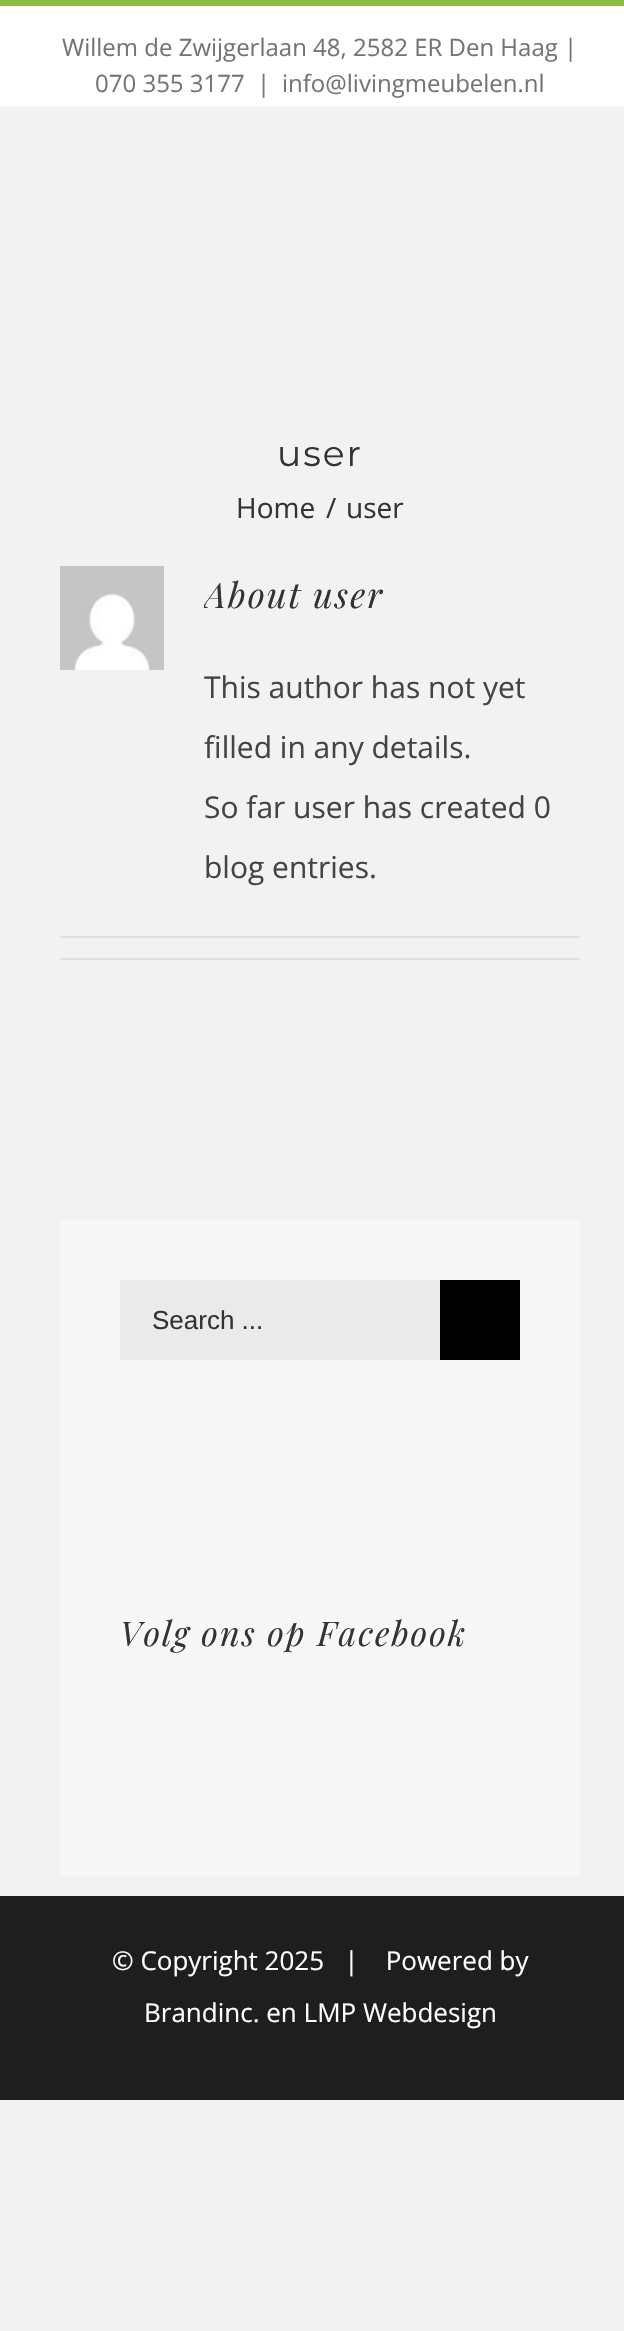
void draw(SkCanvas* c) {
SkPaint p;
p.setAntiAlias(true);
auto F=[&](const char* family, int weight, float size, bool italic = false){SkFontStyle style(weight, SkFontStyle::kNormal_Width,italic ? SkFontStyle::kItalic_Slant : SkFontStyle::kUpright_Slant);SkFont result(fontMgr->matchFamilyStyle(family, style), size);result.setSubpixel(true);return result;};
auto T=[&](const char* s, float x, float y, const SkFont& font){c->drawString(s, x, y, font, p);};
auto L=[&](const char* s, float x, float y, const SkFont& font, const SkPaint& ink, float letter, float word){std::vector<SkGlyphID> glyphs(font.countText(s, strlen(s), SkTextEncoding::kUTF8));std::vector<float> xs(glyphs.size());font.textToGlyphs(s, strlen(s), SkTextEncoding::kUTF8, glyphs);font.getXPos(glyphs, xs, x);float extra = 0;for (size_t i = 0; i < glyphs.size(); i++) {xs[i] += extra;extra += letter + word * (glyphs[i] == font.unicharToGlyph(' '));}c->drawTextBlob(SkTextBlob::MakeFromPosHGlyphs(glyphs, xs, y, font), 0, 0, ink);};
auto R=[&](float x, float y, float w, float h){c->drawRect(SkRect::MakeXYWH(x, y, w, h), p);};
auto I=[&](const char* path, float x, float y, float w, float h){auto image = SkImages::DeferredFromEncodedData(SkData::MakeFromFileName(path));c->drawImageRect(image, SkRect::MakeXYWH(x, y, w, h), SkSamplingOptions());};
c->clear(0xfff2f2f2);
p.setColor(0xffffffff);
R(0,6,624,100);
p.setColor(0xff8abf41);
R(0,0,624,6);
auto f1 = F("Open Sans",400,24);
p.setColor(0xff747474);
T("Willem de Zwijgerlaan 48, 2582 ER Den Haag |",62,56,f1);
T("070 355 3177",95,92,f1);
T("|",257,92,f1);
T("info@livingmeubelen.nl",282,92,f1);
auto f2 = F("Montserrat",100,36);
p.setColor(0xff333333);
L("user",277,466,f2,p,2,0);
auto f3 = F("Open Sans",400,28);
T("Home",236,518,f3);
T("/",326,518,f3);
T("user",346,518,f3);
I("1.png",60,566,104,104);
c->save();
c->clipRect(SkRect::MakeXYWH(204,566,376,330));
auto f4 = F("Playfair Display",400,35,true);
L("About",204,608,f4,p,2,0);
c->restore();
L("user",313,608,f4,p,2,0);
auto f5 = F("Open Sans",400,30);
p.setColor(0xff444444);
T("This author has not yet",204,698,f5);
T("filled in any details.",204,758,f5);
T("So far user has created 0",204,818,f5);
T("blog entries.",204,878,f5);
p.setColor(0xffe0dede);
R(60,936,520,2);
R(60,958,520,2);
p.setColor(0xfff7f7f7);
R(60,1220,520,656);
p.setColor(0xffeaeaea);
R(120,1280,320,80);
auto f6 = F("Liberation Sans",400,26);
p.setColor(0xff333333);
T("Search ...",152,1329,f6);
p.setColor(0xff000000);
R(440,1280,80,80);
auto f7 = F("Playfair Display",400,34,true);
p.setColor(0xff333333);
L("Volg ons op Facebook",120,1646,f7,p,2,0);
p.setColor(0xff1e1e1e);
R(0,1896,624,204);
auto f8 = F("Open Sans",400,26);
p.setColor(0xffffffff);
T("© Copyright 2025   |    Powered by",112,1970,f8);
T("Brandinc. en LMP Webdesign",144,2022,f8);
}
